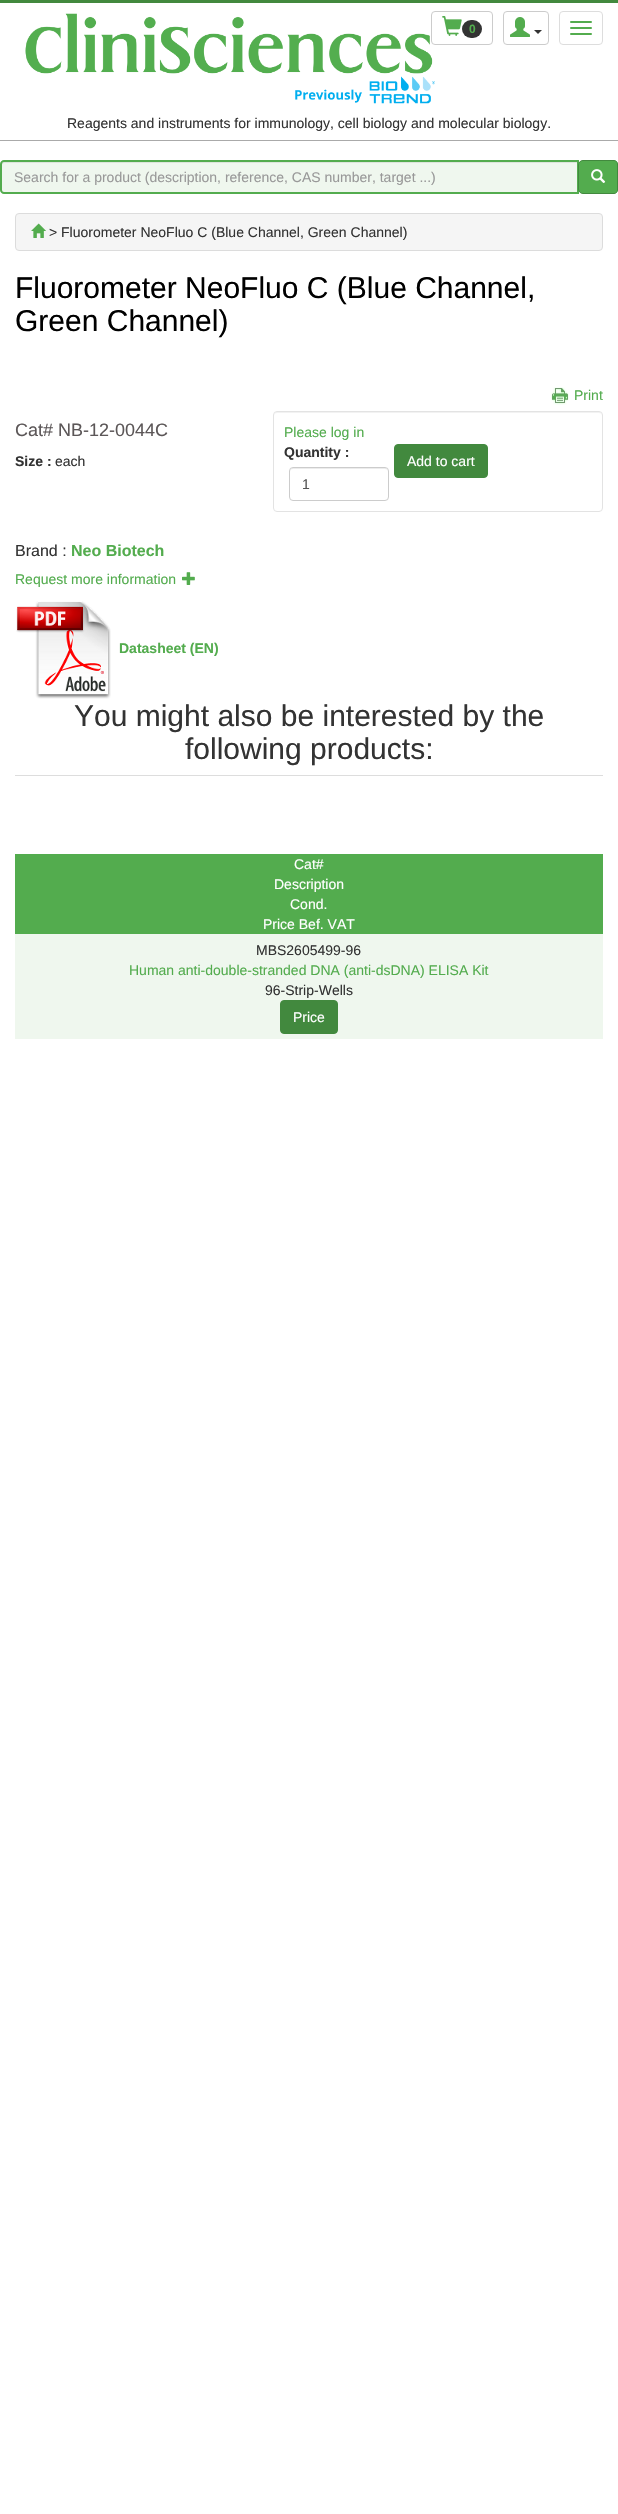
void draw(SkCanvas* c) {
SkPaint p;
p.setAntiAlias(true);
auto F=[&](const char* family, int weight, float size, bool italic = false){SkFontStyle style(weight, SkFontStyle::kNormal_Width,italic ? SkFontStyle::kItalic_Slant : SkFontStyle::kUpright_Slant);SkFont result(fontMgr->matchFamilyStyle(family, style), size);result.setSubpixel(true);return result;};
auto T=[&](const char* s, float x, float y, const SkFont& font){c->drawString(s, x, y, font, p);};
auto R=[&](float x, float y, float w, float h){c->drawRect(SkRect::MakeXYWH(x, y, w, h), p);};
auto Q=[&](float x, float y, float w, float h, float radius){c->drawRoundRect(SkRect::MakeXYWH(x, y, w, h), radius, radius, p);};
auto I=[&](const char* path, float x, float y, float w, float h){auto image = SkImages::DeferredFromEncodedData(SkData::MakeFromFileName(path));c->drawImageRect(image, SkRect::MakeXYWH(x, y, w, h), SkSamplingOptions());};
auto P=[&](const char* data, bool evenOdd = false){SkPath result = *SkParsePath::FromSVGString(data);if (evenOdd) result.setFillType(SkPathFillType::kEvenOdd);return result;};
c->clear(0xffffffff);
p.setColor(0xff42893e);
R(0,0,618,3);
p.setColor(0xffaaaaaa);
R(0,140,618,1);
I("1.png",25,13,410,91);
p.setStroke(true);
p.setStrokeWidth(1);
p.setColor(0xffcccccc);
c->drawRoundRect(SkRect::MakeXYWH(431.5,11.5,61,33),3.5,3.5,p);
I("2.png",442,16,20,20);
p.setStroke(false);
p.setColor(0xff333333);
Q(462,20,20,18,9);
auto f1 = F("Liberation Sans",700,12);
p.setColor(0xff53ac4e);
T("0",469,33,f1);
p.setStroke(true);
p.setColor(0xffcccccc);
c->drawRoundRect(SkRect::MakeXYWH(503.5,11.5,45,33),3.5,3.5,p);
I("3.png",510,17,20,20);
p.setStroke(false);
p.setColor(0xff333333);
c->drawPath(P("M534 30h8l-4 4z"),p);
p.setStroke(true);
p.setColor(0xffdddddd);
c->drawRoundRect(SkRect::MakeXYWH(559.5,11.5,43,33),3.5,3.5,p);
p.setStroke(false);
p.setColor(0xff53ac4e);
Q(570,21,22,2,1);
Q(570,27,22,2,1);
Q(570,33,22,2,1);
auto f2 = F("Liberation Sans",400,14);
p.setColor(0xff333333);
T("Reagents and instruments for immunology, cell biology and molecular biology.",67,128,f2);
p.setColor(0xffeff7ee);
c->drawPath(P("M4 160h575v34h-575c-2 0-4-2-4-4v-26c0-2 2-4 4-4z"),p);
p.setColor(0xffdde4dc);
c->drawPath(P("M4 163h573v-1h-573l-2 1v2c0-1 1-2 2-2z"),p);
p.setStroke(true);
p.setStrokeWidth(2);
p.setColor(0xff53ac4e);
c->drawPath(P("M4 161h574v32h-574c-1.5 0-3-1.5-3-3v-26c0-1.5 1.5-3 3-3z"),p);
p.setStroke(false);
p.setColor(0xff999999);
T("Search for a product (description, reference, CAS number, target ...)",14,182,f2);
p.setColor(0xff53ac4e);
c->drawPath(P("M583 160.5h31c2 0 3.5 1.5 3.5 3.5v26c0 2-1.5 3.5-3.5 3.5h-31c-2.5 0-4.5-2-4.5-4.5v-24c0-2.5 2-4.5 4.5-4.5z"),p);
p.setStroke(true);
p.setStrokeWidth(1);
p.setColor(0xff42893e);
c->drawPath(P("M583 160.5h31c2 0 3.5 1.5 3.5 3.5v26c0 2-1.5 3.5-3.5 3.5h-31c-2.5 0-4.5-2-4.5-4.5v-24c0-2.5 2-4.5 4.5-4.5z"),p);
I("4.png",591,169,15,14);
p.setStroke(false);
p.setColor(0xfff5f5f5);
c->drawRoundRect(SkRect::MakeXYWH(15.5,213.5,587,37),3.5,3.5,p);
p.setStroke(true);
p.setColor(0xffdcdcdc);
c->drawRoundRect(SkRect::MakeXYWH(15.5,213.5,587,37),3.5,3.5,p);
I("5.png",31,223,15,15);
p.setStroke(false);
p.setColor(0xff333333);
T("> Fluorometer NeoFluo C (Blue Channel, Green Channel)",49,237,f2);
auto f3 = F("Liberation Sans",400,30);
p.setColor(0xff000000);
T("Fluorometer NeoFluo C (Blue Channel,",15,298,f3);
T("Green Channel)",15,331,f3);
I("6.png",551,387,18,18);
p.setColor(0xff53ac4e);
T("Print",574,400,f2);
auto f4 = F("Liberation Sans",400,18);
p.setColor(0xff5c5758);
T("Cat# NB-12-0044C",15,436,f4);
auto f5 = F("Liberation Sans",700,14);
p.setColor(0xff333333);
T("Size :",15,466,f5);
T("each",55,466,f2);
auto f6 = F("Liberation Sans",400,16);
T("Brand :",15,556,f6);
auto f7 = F("Liberation Sans",700,16);
p.setColor(0xff53ac4e);
T("Neo Biotech",71,556,f7);
T("Request more information",15,584,f2);
I("7.png",182,572,13,13);
I("8.png",16,601,95,98);
T("Datasheet (EN)",119,653,f5);
p.setColor(0xfff2f2f2);
c->drawPath(P("M277 413h322c2 0 3 1 3 3c0-2-1-4-3-4h-322c-2 0-3 2-3 4c0-2 1-3 3-3z"),p);
p.setStroke(true);
p.setColor(0xffe3e3e3);
c->drawRoundRect(SkRect::MakeXYWH(273.5,411.5,329,100),3.5,3.5,p);
p.setStroke(false);
p.setColor(0xff53ac4e);
T("Please log in",284,437,f2);
p.setColor(0xff333333);
T("Quantity :",284,457,f5);
p.setColor(0xffececec);
c->drawPath(P("M293 469h92c2 0 3 1 3 3c0-8-15-4-18-4h-62c-3 0-18-4-18 4c0-2 1-3 3-3z"),p);
p.setStroke(true);
p.setColor(0xffcccccc);
c->drawRoundRect(SkRect::MakeXYWH(289.5,467.5,99,33),3.5,3.5,p);
p.setStroke(false);
p.setColor(0xff555555);
T("1",302,489,f2);
p.setColor(0xff42893e);
c->drawRoundRect(SkRect::MakeXYWH(394.5,444.5,93,33),3.5,3.5,p);
p.setStroke(true);
c->drawRoundRect(SkRect::MakeXYWH(394.5,444.5,93,33),3.5,3.5,p);
p.setStroke(false);
p.setColor(0xffffffff);
T("Add to cart",407,466,f2);
p.setColor(0xffdddddd);
R(15,775,588,1);
p.setColor(0xff333333);
T("You might also be interested by the",74,726,f3);
T("following products:",185,759,f3);
p.setColor(0xff53ac4e);
R(15,854,588,80);
p.setColor(0xffffffff);
T("Cat#",294,869,f2);
T("Description",274,889,f2);
T("Cond.",290,909,f2);
T("Price Bef. VAT",263,929,f2);
p.setColor(0xffeff7ee);
R(15,934,588,105);
p.setColor(0xff333333);
T("MBS2605499-96",256,955,f2);
p.setColor(0xff53ac4e);
T("Human anti-double-stranded DNA (anti-dsDNA) ELISA Kit",129,975,f2);
p.setColor(0xff333333);
T("96-Strip-Wells",265,995,f2);
p.setColor(0xff42893e);
c->drawRoundRect(SkRect::MakeXYWH(280.5,1000.5,57,33),3.5,3.5,p);
p.setStroke(true);
c->drawRoundRect(SkRect::MakeXYWH(280.5,1000.5,57,33),3.5,3.5,p);
p.setStroke(false);
p.setColor(0xffffffff);
T("Price",293,1022,f2);
}
